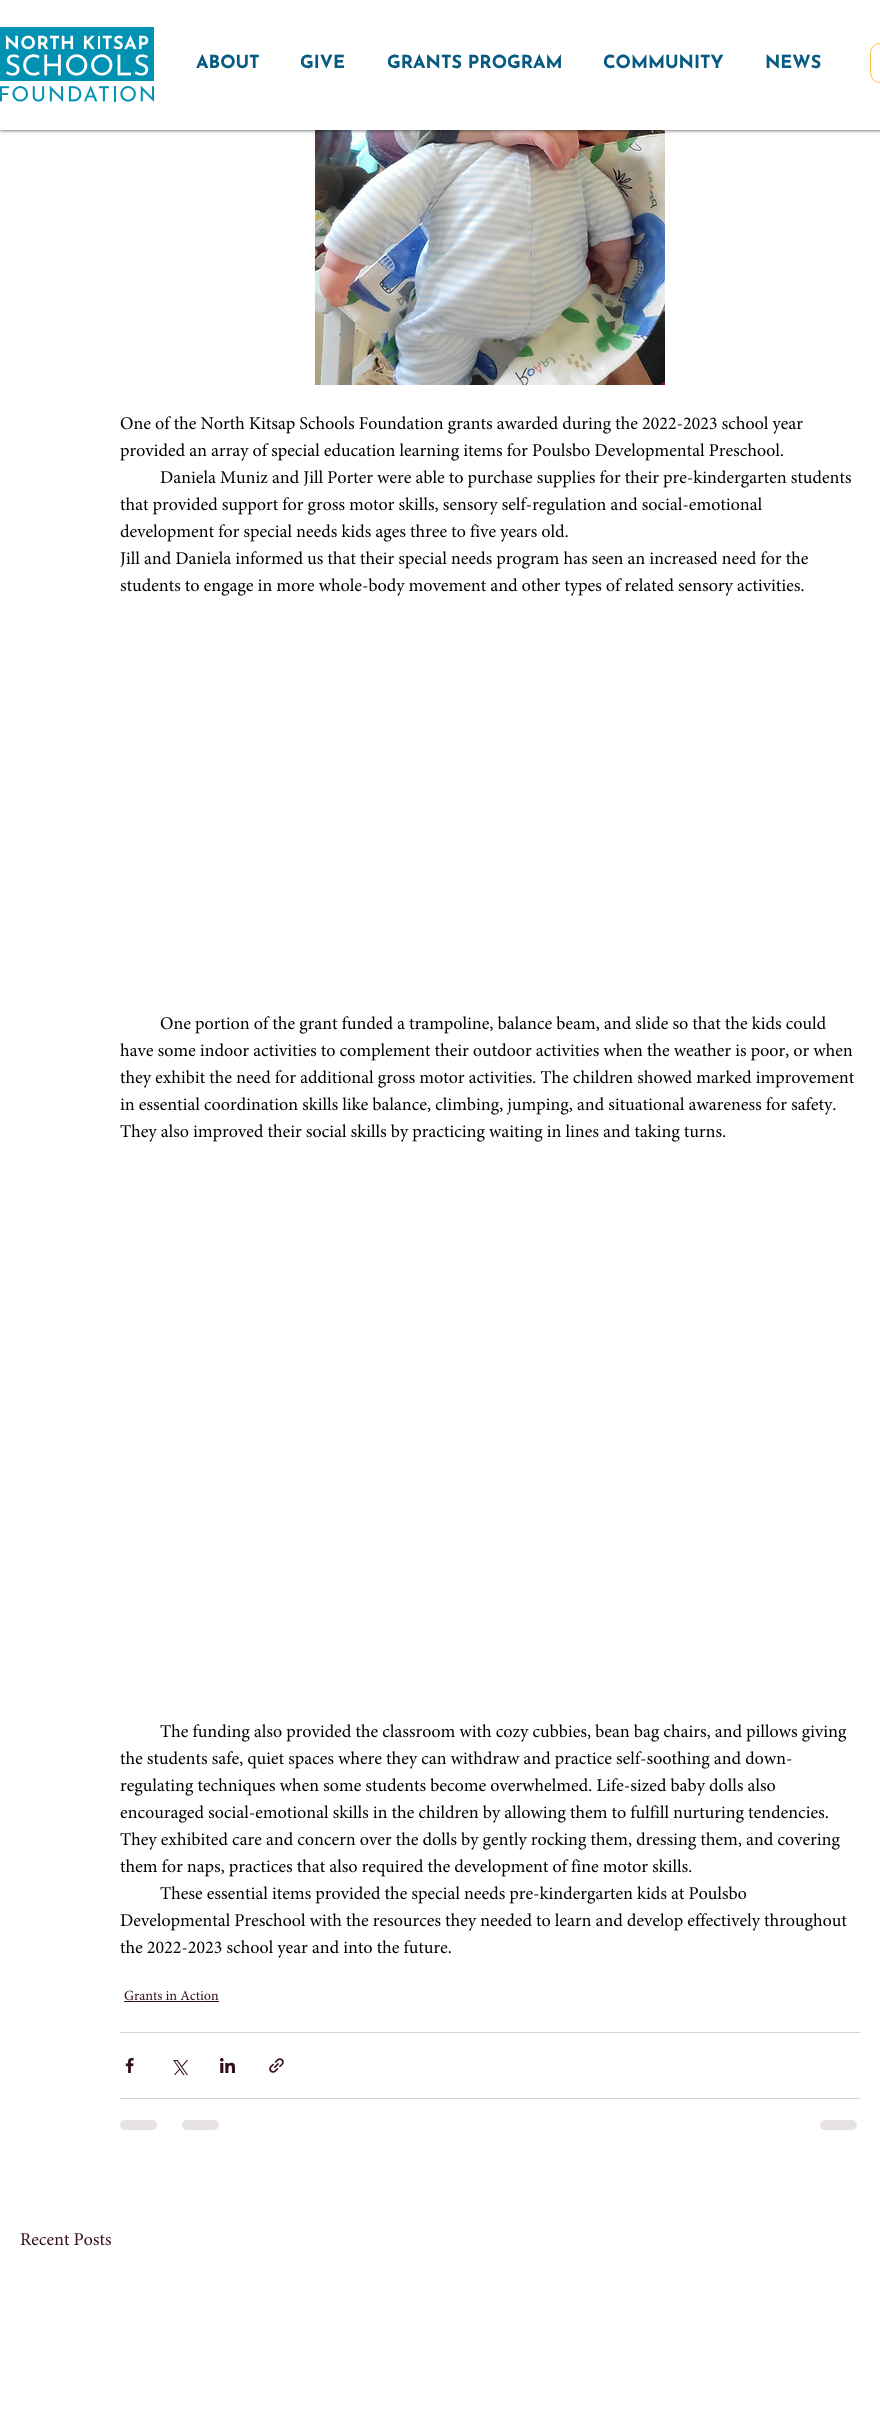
void draw(SkCanvas* c) {
SkPaint p;
p.setAntiAlias(true);
auto F=[&](const char* family, int weight, float size, bool italic = false){SkFontStyle style(weight, SkFontStyle::kNormal_Width,italic ? SkFontStyle::kItalic_Slant : SkFontStyle::kUpright_Slant);SkFont result(fontMgr->matchFamilyStyle(family, style), size);result.setSubpixel(true);return result;};
auto T=[&](const char* s, float x, float y, const SkFont& font){c->drawString(s, x, y, font, p);};
auto R=[&](float x, float y, float w, float h){c->drawRect(SkRect::MakeXYWH(x, y, w, h), p);};
auto Q=[&](float x, float y, float w, float h, float radius){c->drawRoundRect(SkRect::MakeXYWH(x, y, w, h), radius, radius, p);};
auto I=[&](const char* path, float x, float y, float w, float h){auto image = SkImages::DeferredFromEncodedData(SkData::MakeFromFileName(path));c->drawImageRect(image, SkRect::MakeXYWH(x, y, w, h), SkSamplingOptions());};
c->clear(0xffffffff);
I("2.png",315,130,350,255);
p.setColor(0x80000000);
p.setMaskFilter(SkMaskFilter::MakeBlur(kNormal_SkBlurStyle, 1.5));
c->drawRect(SkRect::MakeXYWH(0,1,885,130),p);
p.setMaskFilter(nullptr);
p.setColor(0xffffffff);
R(0,0,880,130);
I("1.png",0,27,154,75);
auto f1 = F("Josefin Sans",700,18);
p.setColor(0xff075a81);
T("ABOUT",196,68,f1);
T("GIVE",300,68,f1);
T("GRANTS PROGRAM",387,68,f1);
T("COMMUNITY",603,68,f1);
T("NEWS",765,68,f1);
p.setStroke(true);
p.setStrokeWidth(1);
p.setColor(0xffffc145);
c->drawRoundRect(SkRect::MakeXYWH(870.5,43.5,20,39),9.5,9.5,p);
I("3.png",120,416,683,18);
I("4.png",120,443,663,18);
I("5.png",160,470,691,18);
I("6.png",120,497,642,18);
I("7.png",120,524,448,18);
I("8.png",120,551,688,18);
I("9.png",120,578,684,18);
I("10.png",160,1016,666,18);
I("11.png",120,1043,733,18);
I("12.png",120,1070,734,18);
I("13.png",120,1097,716,18);
I("14.png",120,1124,606,18);
I("15.png",160,1724,687,18);
I("16.png",120,1751,672,18);
I("17.png",120,1778,655,18);
I("18.png",120,1805,708,18);
I("19.png",120,1832,720,18);
I("20.png",120,1859,572,18);
I("21.png",160,1886,587,18);
I("22.png",120,1913,727,18);
I("23.png",120,1940,331,18);
I("24.png",124,1990,95,11);
p.setStroke(false);
p.setColor(0xff340e1e);
R(124,2001,95,1);
p.setColor(0xffd6cfd2);
R(120,2032,740,1);
I("25.png",125,2058,9,15);
I("26.png",173,2060,15,15);
I("27.png",220,2058,15,15);
I("28.png",269,2058,15,15);
R(120,2098,740,1);
p.setColor(0xffe7e2e4);
Q(120,2120,37,10,5);
Q(182,2120,37,10,5);
Q(820,2120,37,10,5);
I("29.png",20,2233,91,13);
}
